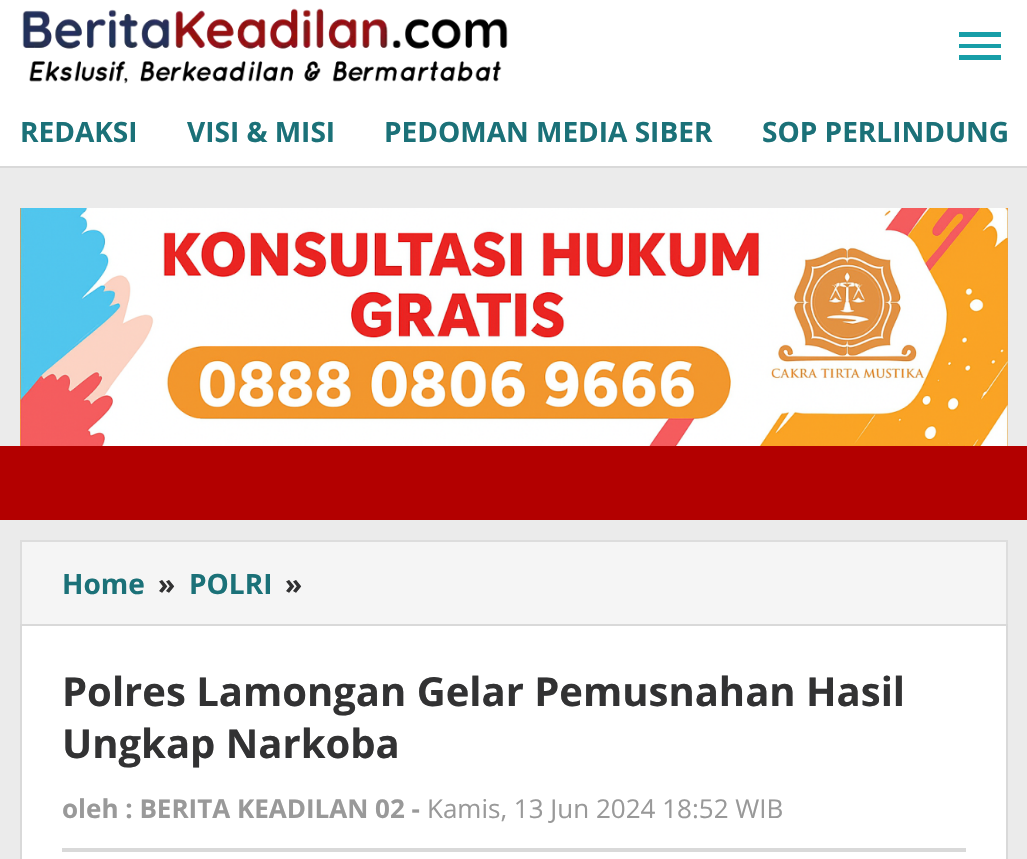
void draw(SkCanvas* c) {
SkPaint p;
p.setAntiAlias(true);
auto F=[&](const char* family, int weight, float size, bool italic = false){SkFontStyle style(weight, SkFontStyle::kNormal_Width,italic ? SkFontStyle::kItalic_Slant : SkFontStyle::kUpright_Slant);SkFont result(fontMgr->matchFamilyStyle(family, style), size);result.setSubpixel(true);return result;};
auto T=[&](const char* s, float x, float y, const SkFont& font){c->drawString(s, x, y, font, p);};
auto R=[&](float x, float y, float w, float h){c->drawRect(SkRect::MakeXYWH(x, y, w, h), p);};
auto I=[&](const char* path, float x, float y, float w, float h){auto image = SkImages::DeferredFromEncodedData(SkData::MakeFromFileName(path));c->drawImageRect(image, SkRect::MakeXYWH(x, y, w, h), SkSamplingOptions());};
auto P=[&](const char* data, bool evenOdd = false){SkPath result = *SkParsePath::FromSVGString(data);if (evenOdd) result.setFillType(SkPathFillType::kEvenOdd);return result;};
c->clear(0xffebebeb);
p.setColor(0xffffffff);
R(0,0,1027,166);
p.setColor(0xffd9d9d9);
R(0,166,1027,2);
I("1.png",22,8,486,76);
p.setColor(0xff179ea8);
c->drawPath(P("M959 60h42v-5h-42zm0-12h42v-4h-42zm0-16v5h42v-5z"),p);
auto f1 = F("Open Sans",700,28);
p.setColor(0xff1b7178);
T("REDAKSI",20,142,f1);
T("VISI & MISI",187,142,f1);
T("PEDOMAN MEDIA SIBER",384,142,f1);
T("SOP PERLINDUNG",762,142,f1);
I("2.png",20,208,988,238);
p.setColor(0xffb30000);
R(0,446,1027,74);
p.setColor(0xfff5f5f5);
c->drawRect(SkRect::MakeXYWH(21,541,986,84),p);
p.setStroke(true);
p.setStrokeWidth(2);
p.setColor(0xffdddddd);
c->drawRect(SkRect::MakeXYWH(21,541,986,84),p);
p.setStroke(false);
p.setColor(0xff1b7178);
T("Home",62,594,f1);
p.setColor(0xff323233);
T("»",158,594,f1);
p.setColor(0xff1b7178);
T("POLRI",189,594,f1);
p.setColor(0xff323233);
T("»",285,594,f1);
p.setColor(0xffffffff);
c->drawRect(SkRect::MakeXYWH(21,625,986,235),p);
p.setStroke(true);
p.setColor(0xffd9d9d9);
c->drawRect(SkRect::MakeXYWH(21,625,986,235),p);
p.setStroke(false);
R(62,848,904,4);
auto f2 = F("Open Sans",700,40);
p.setColor(0xff323233);
T("Polres Lamongan Gelar Pemusnahan Hasil",62,706,f2);
T("Ungkap Narkoba",62,758,f2);
auto f3 = F("Open Sans",700,26);
p.setColor(0xff999999);
T("oleh : BERITA KEADILAN 02 -",62,818,f3);
auto f4 = F("Open Sans",400,26);
T("Kamis, 13 Jun 2024 18:52 WIB",427,818,f4);
}
